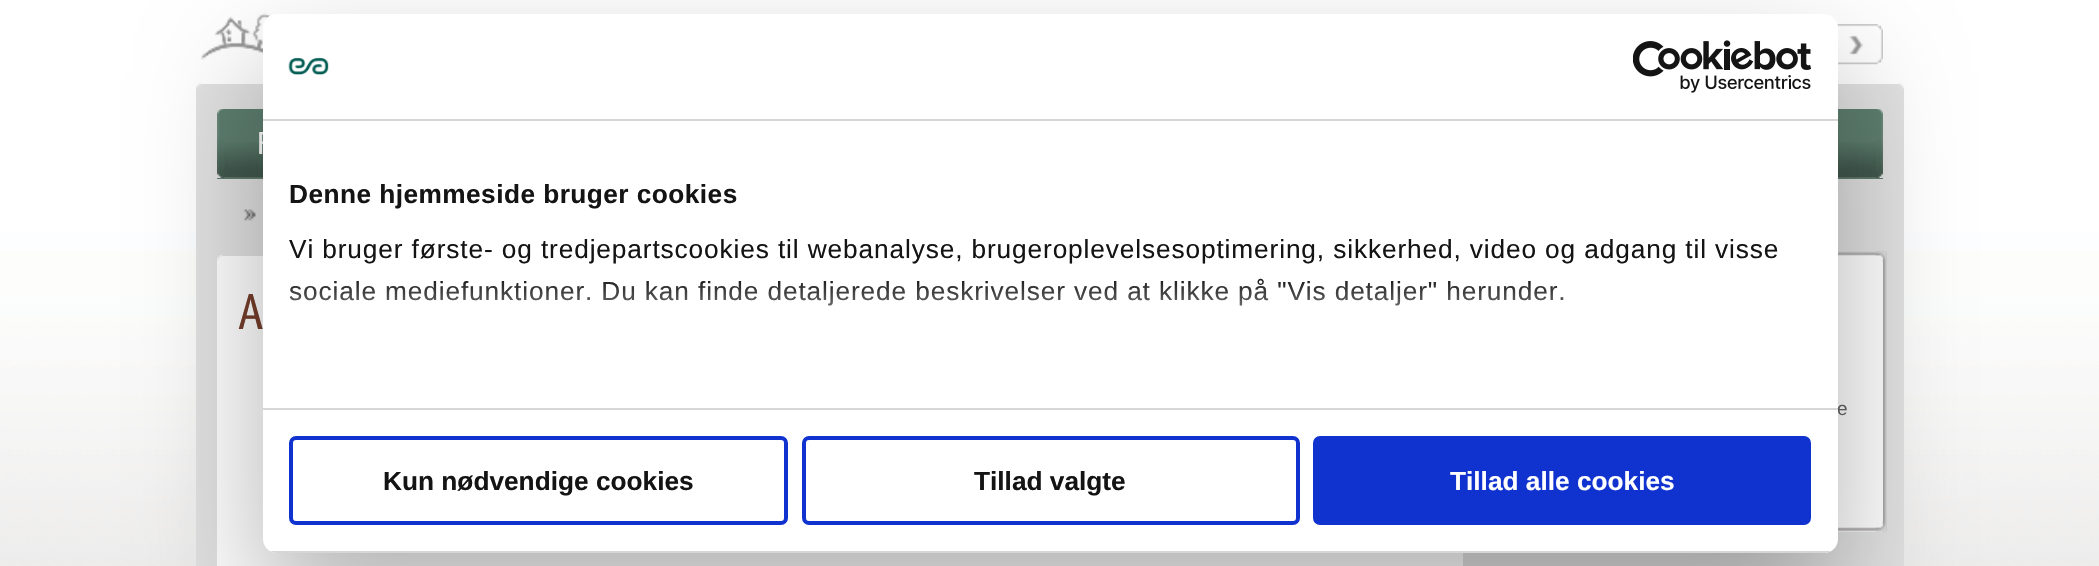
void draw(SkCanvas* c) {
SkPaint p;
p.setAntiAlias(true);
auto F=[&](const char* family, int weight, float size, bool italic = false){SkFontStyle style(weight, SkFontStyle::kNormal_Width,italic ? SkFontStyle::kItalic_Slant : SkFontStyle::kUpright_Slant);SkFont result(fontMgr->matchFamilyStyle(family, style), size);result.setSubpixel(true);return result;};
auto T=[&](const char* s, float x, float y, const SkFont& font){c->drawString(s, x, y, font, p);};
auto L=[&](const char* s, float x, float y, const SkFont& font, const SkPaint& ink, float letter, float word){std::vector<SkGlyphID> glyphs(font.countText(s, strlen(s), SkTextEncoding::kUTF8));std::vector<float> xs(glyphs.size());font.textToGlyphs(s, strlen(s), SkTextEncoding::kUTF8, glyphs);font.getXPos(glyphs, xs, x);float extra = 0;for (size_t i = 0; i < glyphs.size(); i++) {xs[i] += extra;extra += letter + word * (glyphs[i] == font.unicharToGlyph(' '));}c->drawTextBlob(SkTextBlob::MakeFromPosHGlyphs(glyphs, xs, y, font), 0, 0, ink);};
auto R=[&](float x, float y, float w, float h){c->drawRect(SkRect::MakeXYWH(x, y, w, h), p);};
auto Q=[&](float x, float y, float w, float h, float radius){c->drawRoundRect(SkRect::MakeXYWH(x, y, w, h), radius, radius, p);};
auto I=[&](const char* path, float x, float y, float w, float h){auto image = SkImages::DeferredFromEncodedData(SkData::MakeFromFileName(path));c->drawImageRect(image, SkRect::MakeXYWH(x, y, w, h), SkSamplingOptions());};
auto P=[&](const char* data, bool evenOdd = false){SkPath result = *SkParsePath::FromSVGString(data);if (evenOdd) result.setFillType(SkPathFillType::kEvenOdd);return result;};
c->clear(0xffffffff);
I("1.png",0,0,2099,566);
I("2.png",201,13,127,54);
I("3.png",1837,24,46,41);
p.setColor(0xffe1e1e1);
R(196,84,1708,482);
I("4.png",196,83,5,6);
I("5.png",1899,83,5,6);
p.setColor(0xff5d7e6e);
R(217,109,1666,70);
I("6.png",217,109,7,69);
I("7.png",224,142,1652,36);
auto f1 = F("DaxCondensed",400,32);
p.setColor(0xffffffff);
T("F",257,154,f1);
I("8.png",1876,109,7,69);
I("9.png",243,209,13,12);
R(217,256,1246,310);
I("10.png",217,255,6,5);
auto f2 = F("DaxCondensed",400,51);
p.setColor(0xff763e2b);
T("A",238,329,f2);
I("13.png",1883,251,4,281);
p.setColor(0xffffffff);
R(1838,254,45,278);
I("11.png",1838,251,49,5);
I("12.png",1876,251,11,11);
auto f3 = F("Liberation Sans",400,19);
p.setColor(0xff666666);
T("e",1837,415,f3);
I("14.png",1838,527,49,5);
I("15.png",1876,521,11,11);
p.setColor(0x4d000000);
p.setMaskFilter(SkMaskFilter::MakeBlur(kNormal_SkBlurStyle, 59.5));
c->drawRoundRect(SkRect::MakeXYWH(263,70,1575,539),14,14,p);
p.setMaskFilter(nullptr);
p.setColor(0xffffffff);
Q(263,14,1575,539,14);
p.setColor(0xffd6d6d6);
R(263,119,1575,2);
I("16.png",288,57,41,18);
I("17.png",1633,40,178,53);
R(263,408,1575,2);
auto f4 = F("Liberation Sans",700,26.25);
p.setColor(0xff141414);
L("Denne hjemmeside bruger cookies",289,203,f4,p,.45,0);
auto f5 = F("Liberation Sans",400,26.25);
L("Vi bruger første- og tredjepartscookies til webanalyse, brugeroplevelsesoptimering, sikkerhed, video og adgang til visse",289,258,f5,p,.88,0);
L("sociale mediefunktioner. Du kan finde detaljerede beskrivelser ved at klikke på \"Vis detaljer\" herunder.",289,300,f5,p,.88,0);
{
const SkColor colors[] = {0xffffffff,0xccffffff,0x00ffffff};
const float stops[] = {0,.5,1};
const SkPoint ends[] = {{1039,408}, {1039,277}};
p.setShader(SkGradientShader::MakeLinear(ends, colors, stops, 3, SkTileMode::kClamp));
p.setAlpha(255);
}
R(289,279,1274,27);
c->save();
c->clipPath(P("M277 14h1547c7.5 0 14 6.5 14 14v511c0 7.5-6.5 14-14 14h-1547c-7.5 0-14-6.5-14-14v-511c0-7.5 6.5-14 14-14z"),true);
p.setShader(nullptr);
p.setColor(0xffd6d6d6);
R(263,551,1575,2);
c->restore();
p.setStroke(true);
p.setStrokeWidth(4);
p.setColor(0xff1032cf);
c->drawRoundRect(SkRect::MakeXYWH(291,438,495,85),5,5,p);
p.setStroke(false);
p.setColor(0xff141414);
T("Kun nødvendige cookies",383,490,f4);
p.setStroke(true);
p.setColor(0xff1032cf);
c->drawRoundRect(SkRect::MakeXYWH(804,438,494,85),5,5,p);
p.setStroke(false);
p.setColor(0xff141414);
T("Tillad valgte",974,490,f4);
p.setColor(0xff1032cf);
c->drawRoundRect(SkRect::MakeXYWH(1315,438,494,85),5,5,p);
p.setStroke(true);
c->drawRoundRect(SkRect::MakeXYWH(1315,438,494,85),5,5,p);
p.setStroke(false);
p.setColor(0xffffffff);
T("Tillad alle cookies",1450,490,f4);
}
